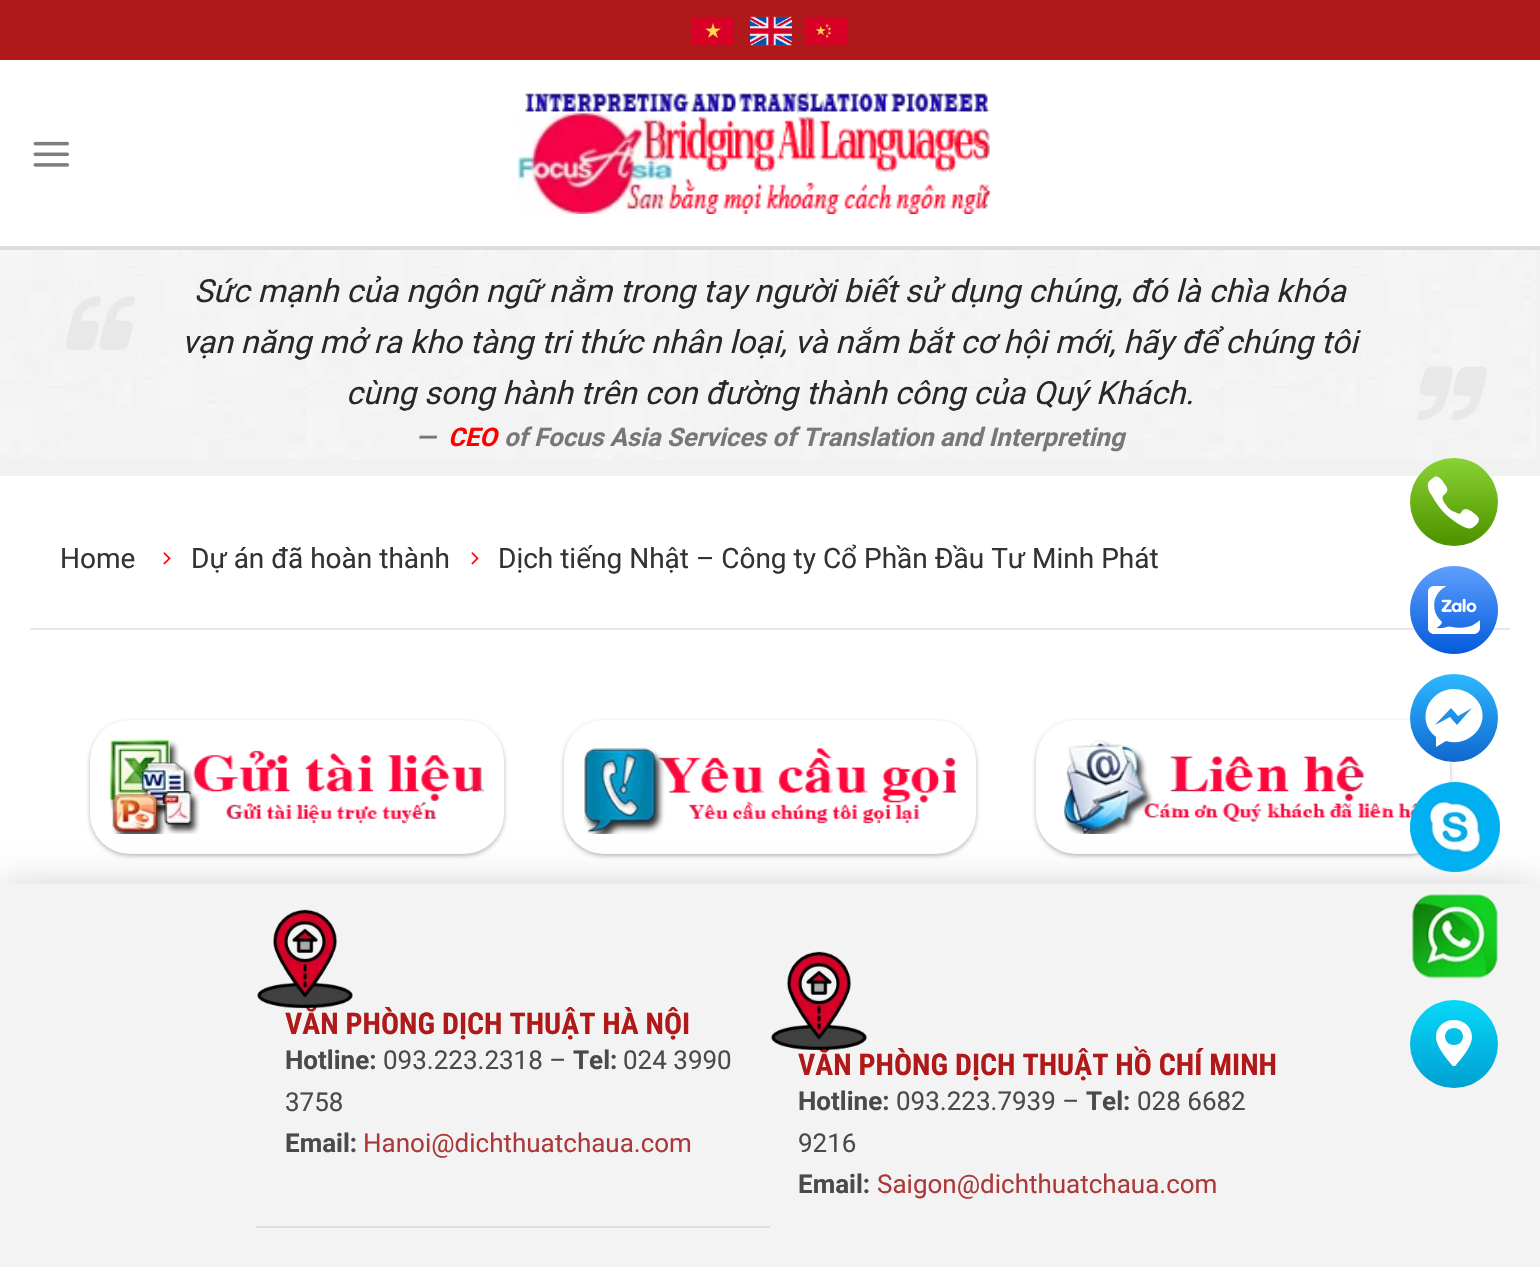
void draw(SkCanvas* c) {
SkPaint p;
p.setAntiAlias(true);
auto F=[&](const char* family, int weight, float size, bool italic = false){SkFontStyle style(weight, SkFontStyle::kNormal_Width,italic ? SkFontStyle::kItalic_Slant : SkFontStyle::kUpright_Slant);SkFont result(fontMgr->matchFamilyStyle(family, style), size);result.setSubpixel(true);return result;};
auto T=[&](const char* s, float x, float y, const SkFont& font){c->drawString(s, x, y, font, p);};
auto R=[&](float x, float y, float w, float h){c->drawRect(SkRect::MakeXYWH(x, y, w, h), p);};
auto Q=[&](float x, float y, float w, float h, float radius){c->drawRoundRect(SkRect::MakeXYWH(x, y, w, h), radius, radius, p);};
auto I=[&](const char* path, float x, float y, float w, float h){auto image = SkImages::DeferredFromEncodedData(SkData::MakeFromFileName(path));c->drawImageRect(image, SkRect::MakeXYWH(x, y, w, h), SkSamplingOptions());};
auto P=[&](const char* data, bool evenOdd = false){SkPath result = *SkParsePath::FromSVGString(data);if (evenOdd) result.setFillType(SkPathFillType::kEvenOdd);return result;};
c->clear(0xffffffff);
p.setColor(0xffb01919);
R(0,0,1540,60);
I("1.png",692,17,42,28);
I("2.png",750,16,42,30);
I("3.png",806,17,42,28);
I("4.png",33,141,36,26);
I("5.png",518,92,474,122);
p.setColor(0xfff1f1f1);
R(0,250,1540,226);
I("6.png",0,250,1536,210);
p.setColor(0xffdddddd);
R(0,246,1540,4);
I("7.png",65,296,70,54);
auto f1 = F("Roboto",400,32,true);
p.setColor(0xff282828);
T("Sức mạnh của ngôn ngữ nằm trong tay người biết sử dụng chúng, đó là chìa khóa",194,302,f1);
T("vạn năng mở ra kho tàng tri thức nhân loại, và nắm bắt cơ hội mới, hãy để chúng tôi",182,353,f1);
T("cùng song hành trên con đường thành công của Quý Khách.",346,404,f1);
auto f2 = F("Roboto",700,25.6,true);
p.setColor(0xff777777);
T("—",416,446,f2);
p.setColor(0xffff0000);
T("CEO",448,446,f2);
p.setColor(0xff777777);
T("of Focus Asia Services of Translation and Interpreting",504,446,f2);
I("8.png",1417,366,70,54);
p.setColor(0xffe7e8ea);
R(30,628,1480,2);
auto f3 = F("Roboto",400,28);
p.setColor(0xff333333);
T("Home",60,568,f3);
I("9.png",163,552,8,13);
T("Dự án đã hoàn thành",191,568,f3);
I("9.png",471,552,8,13);
T("Dịch tiếng Nhật – Công ty Cổ Phần Đầu Tư Minh Phát",498,568,f3);
p.setColor(0x3d000000);
p.setMaskFilter(SkMaskFilter::MakeBlur(kNormal_SkBlurStyle, 2));
c->drawRoundRect(SkRect::MakeXYWH(90,722,414,134),40,40,p);
p.setMaskFilter(nullptr);
p.setColor(0x1f000000);
p.setMaskFilter(SkMaskFilter::MakeBlur(kNormal_SkBlurStyle, 3));
c->drawRoundRect(SkRect::MakeXYWH(94,726,406,126),36,36,p);
p.setMaskFilter(nullptr);
p.setColor(0xffffffff);
Q(90,720,414,134,40);
I("10.png",110,740,374,94);
p.setColor(0x3d000000);
p.setMaskFilter(SkMaskFilter::MakeBlur(kNormal_SkBlurStyle, 2));
c->drawRoundRect(SkRect::MakeXYWH(564,722,412,134),40,40,p);
p.setMaskFilter(nullptr);
p.setColor(0x1f000000);
p.setMaskFilter(SkMaskFilter::MakeBlur(kNormal_SkBlurStyle, 3));
c->drawRoundRect(SkRect::MakeXYWH(568,726,404,126),36,36,p);
p.setMaskFilter(nullptr);
p.setColor(0xffffffff);
Q(564,720,412,134,40);
I("11.png",584,748,372,86);
p.setColor(0x3d000000);
p.setMaskFilter(SkMaskFilter::MakeBlur(kNormal_SkBlurStyle, 2));
c->drawRoundRect(SkRect::MakeXYWH(1036,722,414,134),40,40,p);
p.setMaskFilter(nullptr);
p.setColor(0x1f000000);
p.setMaskFilter(SkMaskFilter::MakeBlur(kNormal_SkBlurStyle, 3));
c->drawRoundRect(SkRect::MakeXYWH(1040,726,406,126),36,36,p);
p.setMaskFilter(nullptr);
p.setColor(0xffffffff);
Q(1036,720,414,134,40);
I("12.png",1064,740,354,94);
p.setColor(0x8c9e9e9e);
p.setMaskFilter(SkMaskFilter::MakeBlur(kNormal_SkBlurStyle, 20));
c->drawRect(SkRect::MakeXYWH(0,888,1540,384),p);
p.setMaskFilter(nullptr);
p.setColor(0xfff3f3f3);
R(0,884,1540,383);
auto f4 = F("Roboto Condensed",700,30);
p.setColor(0xffb01919);
T("VĂN PHÒNG DỊCH THUẬT HÀ NỘI",285,1034,f4);
I("13.png",257,909,96,100);
auto f5 = F("Roboto",700,26);
p.setColor(0xff4a4a4a);
T("Hotline:",285,1069,f5);
auto f6 = F("Roboto",400,26);
T("093.223.2318 –",383,1069,f6);
T("Tel:",573,1069,f5);
T("024 3990",623,1069,f6);
T("3758",285,1111,f6);
T("Email:",285,1152,f5);
p.setColor(0xffad3839);
T("Hanoi@dichthuatchaua.com",363,1152,f6);
p.setColor(0xffdddddd);
R(256,1226,514,2);
p.setColor(0xffb01919);
T("VĂN PHÒNG DỊCH THUẬT HỒ CHÍ MINH",798,1075,f4);
I("14.png",771,951,96,99);
p.setColor(0xff4a4a4a);
T("Hotline:",798,1110,f5);
T("093.223.7939 –",896,1110,f6);
T("Tel:",1086,1110,f5);
T("028 6682",1137,1110,f6);
T("9216",798,1152,f6);
T("Email:",798,1193,f5);
p.setColor(0xffad3839);
T("Saigon@dichthuatchaua.com",877,1193,f6);
{
const SkColor colors[] = {0xff8ad336,0xff509600};
const float stops[] = {0,1};
const SkPoint ends[] = {{1454,458}, {1454,539}};
p.setShader(SkGradientShader::MakeLinear(ends, colors, stops, 2, SkTileMode::kClamp));
p.setAlpha(255);
}
c->drawCircle(1454,502,44,p);
p.setShader(nullptr);
p.setColor(0xffffffff);
c->drawPath(P("M1438 477c3 1 6 6 8 9c6 10-10 6 0 19c2 3 5 6 9 7c8 5 5-3 11-3c3 0 13 7 13 10c0 2-1 4-3 6c-5 5-8 4-14 1c-11-6-20-14-27-25l-6-10c-2-7-2-9 4-13c1-1 3-2 5-1z",true),p);
I("15.png",1410,566,88,88);
{
const SkColor colors[] = {0xff1168cf,0xff2cb7ff};
const float stops[] = {0,1};
const SkPoint ends[] = {{1453,761}, {1453,675}};
p.setShader(SkGradientShader::MakeLinear(ends, colors, stops, 2, SkTileMode::kClamp));
p.setAlpha(255);
}
c->drawCircle(1454,718,44,p);
p.setShader(nullptr);
p.setColor(0xffffffff);
c->drawPath(P("M1454 689c-26 0-39 32-18 48v10l10-6c26 8 50-23 28-44c-5-5-13-8-20-8zm3 36l-7-8l-15 8l16-17l7 8l14-8z",true),p);
I("16.png",1410,782,90,90);
I("17.png",1412,894,86,85);
{
const SkColor colors[] = {0xff07d8f8,0xff00a0d2};
const float stops[] = {0,1};
const SkPoint ends[] = {{1454,1000}, {1454,1088}};
p.setShader(SkGradientShader::MakeLinear(ends, colors, stops, 2, SkTileMode::kClamp));
p.setAlpha(255);
}
c->drawCircle(1454,1044,44,p);
p.setShader(nullptr);
p.setColor(0xffffffff);
c->drawPath(P("M1454 1020c-10 0-18 7-18 17c0 11 16 28 17 29c0 0 2 0 2 0c1-1 17-18 17-29c0-10-8-17-18-17zm0 25c-12 0-12-17 0-17c12 0 12 17 0 17z"),p);
}
